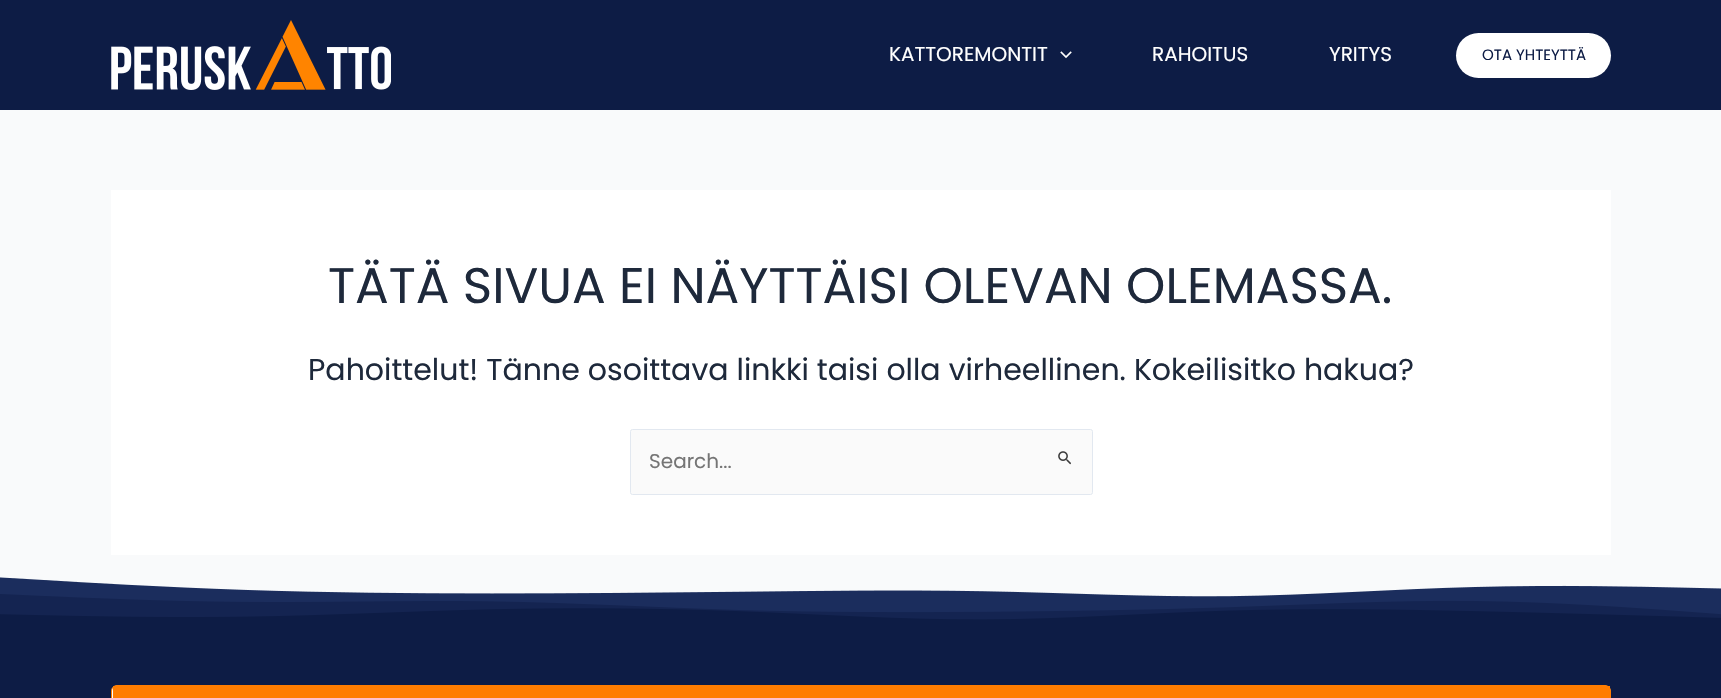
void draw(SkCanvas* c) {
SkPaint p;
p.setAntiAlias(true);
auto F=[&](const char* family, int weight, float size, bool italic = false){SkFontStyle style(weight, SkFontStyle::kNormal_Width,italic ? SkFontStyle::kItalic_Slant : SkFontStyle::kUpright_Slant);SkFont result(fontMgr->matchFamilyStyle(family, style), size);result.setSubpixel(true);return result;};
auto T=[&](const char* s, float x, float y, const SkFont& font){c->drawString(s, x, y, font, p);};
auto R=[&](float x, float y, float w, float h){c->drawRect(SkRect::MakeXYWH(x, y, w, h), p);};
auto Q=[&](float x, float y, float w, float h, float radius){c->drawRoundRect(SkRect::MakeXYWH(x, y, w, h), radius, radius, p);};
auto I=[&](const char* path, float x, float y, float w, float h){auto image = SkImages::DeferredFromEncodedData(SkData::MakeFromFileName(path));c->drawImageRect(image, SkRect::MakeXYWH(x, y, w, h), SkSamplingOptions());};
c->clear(0xfff9fafb);
p.setColor(0xff0d1c45);
R(0,0,1721,110);
I("1.png",111,20,280,70);
auto f1 = F("Poppins",400,20);
p.setColor(0xffffffff);
T("KATTOREMONTIT",889,61,f1);
I("2.png",1060,51,12,8);
T("RAHOITUS",1152,61,f1);
T("YRITYS",1329,61,f1);
Q(1456,33,155,45,22.5);
auto f2 = F("Poppins",400,15);
p.setColor(0xff0d1c45);
T("OTA YHTEYTTÄ",1482,60,f2);
p.setColor(0xffffffff);
R(111,190,1500,365);
auto f3 = F("Poppins",400,50);
p.setColor(0xff1e293b);
T("TÄTÄ SIVUA EI NÄYTTÄISI OLEVAN OLEMASSA.",328,303,f3);
auto f4 = F("Poppins",400,30);
T("Pahoittelut! Tänne osoittava linkki taisi olla virheellinen. Kokeilisitko hakua?",308,380,f4);
p.setColor(0xfffafafa);
c->drawRoundRect(SkRect::MakeXYWH(630.5,429.5,462,65),2,2,p);
p.setStroke(true);
p.setStrokeWidth(1);
p.setColor(0xffe2e8f0);
c->drawRoundRect(SkRect::MakeXYWH(630.5,429.5,462,65),2,2,p);
p.setStroke(false);
p.setColor(0xff757575);
T("Search...",649,468,f1);
I("3.png",1058,451,13,14);
I("4.png",0,577,1721,58);
p.setColor(0xff0d1c45);
R(0,635,1721,63);
p.setColor(0xffffffff);
c->drawRoundRect(SkRect::MakeXYWH(111.5,685.5,1499,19),5.5,5.5,p);
p.setStroke(true);
p.setColor(0xffff7d00);
c->drawRoundRect(SkRect::MakeXYWH(111.5,685.5,1499,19),5.5,5.5,p);
p.setStroke(false);
R(113,686,1497,12);
}
